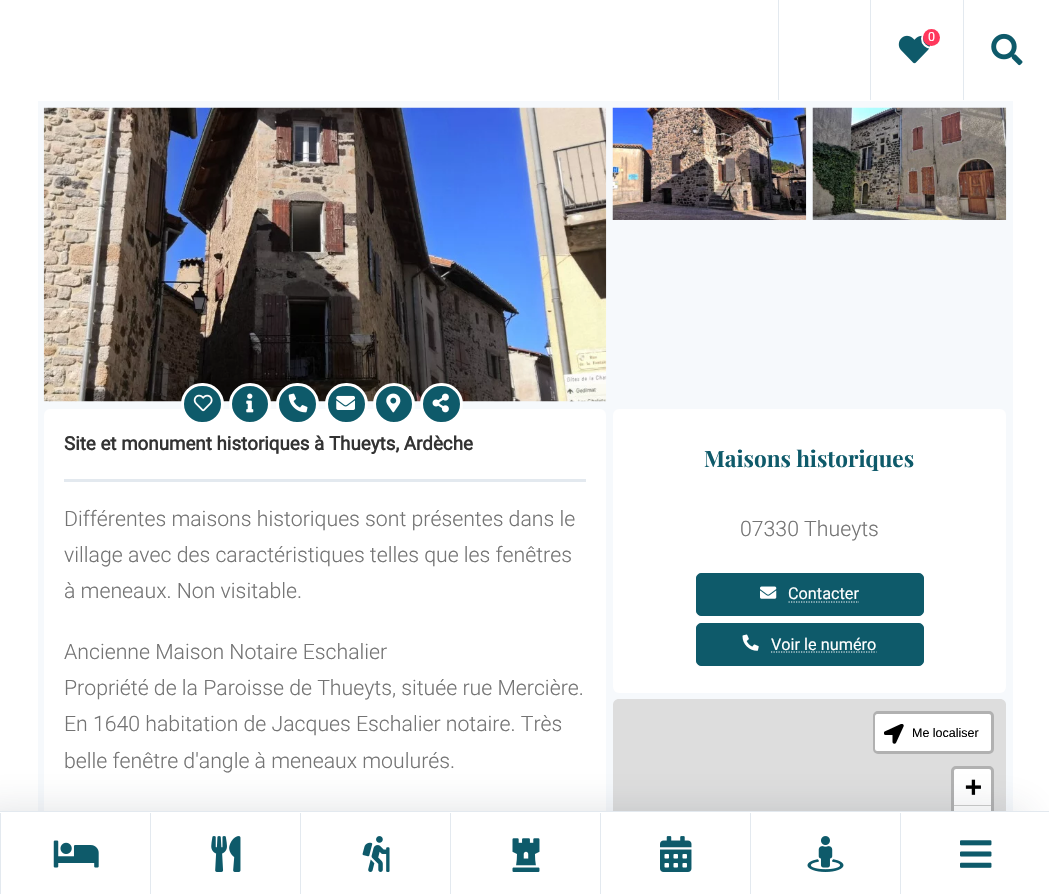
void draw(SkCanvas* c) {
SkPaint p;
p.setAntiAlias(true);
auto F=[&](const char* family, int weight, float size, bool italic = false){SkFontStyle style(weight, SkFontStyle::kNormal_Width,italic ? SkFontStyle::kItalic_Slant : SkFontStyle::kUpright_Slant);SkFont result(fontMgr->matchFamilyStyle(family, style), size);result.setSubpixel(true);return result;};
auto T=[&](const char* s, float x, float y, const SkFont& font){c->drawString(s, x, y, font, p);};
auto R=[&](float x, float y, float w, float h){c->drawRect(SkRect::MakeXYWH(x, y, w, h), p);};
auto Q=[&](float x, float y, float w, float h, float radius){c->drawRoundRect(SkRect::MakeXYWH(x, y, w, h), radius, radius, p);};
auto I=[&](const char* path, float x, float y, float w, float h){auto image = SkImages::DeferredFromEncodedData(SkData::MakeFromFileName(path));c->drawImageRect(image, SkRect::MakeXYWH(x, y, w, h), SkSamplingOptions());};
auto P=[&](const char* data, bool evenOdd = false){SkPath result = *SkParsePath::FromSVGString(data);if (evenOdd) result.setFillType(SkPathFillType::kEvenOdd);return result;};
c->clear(0xffffffff);
p.setColor(0xffe3e9ef);
R(778,0,1,100);
R(870,0,1,100);
I("1.png",898,35,32,29);
p.setStroke(true);
p.setStrokeWidth(2);
p.setColor(0xffffffff);
c->drawRoundRect(SkRect::MakeXYWH(922,29,20,19),9.5,9.5,p);
p.setStroke(false);
p.setColor(0xffff385c);
c->drawCircle(931.5,37.5,8.5,p);
auto f1 = F("Roboto",400,12.5);
p.setColor(0xffffffff);
T("0",928,41,f1);
p.setColor(0xffe3e9ef);
R(963,0,1,100);
I("2.png",991,33,32,33);
p.setColor(0xfff6f9fc);
R(38,101,975,710);
I("3.png",43,107,564,295);
I("4.png",612,107,195,113);
I("5.png",812,107,195,113);
p.setColor(0xffffffff);
Q(44,409,562,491,6);
p.setColor(0xff0e5a6a);
c->drawRoundRect(SkRect::MakeXYWH(182.5,384.5,40,39),19.5,19.5,p);
p.setStroke(true);
p.setStrokeWidth(3);
p.setColor(0xffffffff);
c->drawRoundRect(SkRect::MakeXYWH(182.5,384.5,40,39),19.5,19.5,p);
I("6.png",193,394,20,18);
p.setStroke(false);
p.setColor(0xff0e5a6a);
c->drawCircle(250,404,19.5,p);
p.setStroke(true);
p.setColor(0xffffffff);
c->drawCircle(250,404,19.5,p);
I("7.png",246,393,8,20);
p.setStroke(false);
p.setColor(0xff0e5a6a);
c->drawRoundRect(SkRect::MakeXYWH(277.5,384.5,40,39),19.5,19.5,p);
p.setStroke(true);
p.setColor(0xffffffff);
c->drawRoundRect(SkRect::MakeXYWH(277.5,384.5,40,39),19.5,19.5,p);
I("8.png",288,393,20,20);
p.setStroke(false);
p.setColor(0xff0e5a6a);
c->drawRoundRect(SkRect::MakeXYWH(326.5,384.5,40,39),19.5,19.5,p);
p.setStroke(true);
p.setColor(0xffffffff);
c->drawRoundRect(SkRect::MakeXYWH(326.5,384.5,40,39),19.5,19.5,p);
I("9.png",336,395,19,15);
p.setStroke(false);
p.setColor(0xff0e5a6a);
c->drawCircle(394,404,19.5,p);
p.setStroke(true);
p.setColor(0xffffffff);
c->drawCircle(394,404,19.5,p);
I("10.png",386,393,15,20);
p.setStroke(false);
p.setColor(0xff0e5a6a);
c->drawRoundRect(SkRect::MakeXYWH(421.5,384.5,40,39),19.5,19.5,p);
p.setStroke(true);
p.setColor(0xffffffff);
c->drawRoundRect(SkRect::MakeXYWH(421.5,384.5,40,39),19.5,19.5,p);
I("11.png",432,393,17,20);
auto f2 = F("Roboto",700,18.75);
p.setStroke(false);
p.setColor(0xff333333);
T("Site et monument historiques à Thueyts, Ardèche",64,450,f2);
p.setColor(0xffe3e9ef);
R(64,479,522,3);
auto f3 = F("Roboto",300,21.25);
p.setColor(0xff747474);
T("Différentes maisons historiques sont présentes dans le",64,526,f3);
T("village avec des caractéristiques telles que les fenêtres",64,562,f3);
T("à meneaux. Non visitable.",64,598,f3);
T("Ancienne Maison Notaire Eschalier",64,659,f3);
T("Propriété de la Paroisse de Thueyts, située rue Mercière.",64,695,f3);
T("En 1640 habitation de Jacques Eschalier notaire. Très",64,731,f3);
T("belle fenêtre d'angle à meneaux moulurés.",64,768,f3);
p.setColor(0xffffffff);
Q(613,409,393,284,6);
auto f4 = F("Playfair Display",700,22.5);
p.setColor(0xff0e5a6a);
T("Maisons historiques",704,467,f4);
p.setColor(0xff747474);
T("07330 Thueyts",740,536,f3);
p.setColor(0xff0e5a6a);
c->drawRoundRect(SkRect::MakeXYWH(696.5,573.5,227,42),4.5,4.5,p);
p.setStroke(true);
p.setStrokeWidth(1);
c->drawRoundRect(SkRect::MakeXYWH(696.5,573.5,227,42),4.5,4.5,p);
I("12.png",760,586,17,13);
auto f5 = F("Roboto",400,16.25);
p.setStroke(false);
p.setColor(0xffffffff);
T("Contacter",788,599,f5);
p.setStroke(true);
p.setStrokeWidth(1.2);
p.setPathEffect(SkDashPathEffect::Make({{1.25f,1.25f}}, 0));
c->drawPath(P("M788.5 602h70.5"),p);
p.setPathEffect(nullptr);
p.setStroke(false);
p.setColor(0xff0e5a6a);
c->drawRoundRect(SkRect::MakeXYWH(696.5,623.5,227,42),4.5,4.5,p);
p.setStroke(true);
p.setStrokeWidth(1);
c->drawRoundRect(SkRect::MakeXYWH(696.5,623.5,227,42),4.5,4.5,p);
I("13.png",742,634,17,17);
p.setStroke(false);
p.setColor(0xffffffff);
T("Voir le numéro",771,650,f5);
p.setStroke(true);
p.setStrokeWidth(1.2);
p.setPathEffect(SkDashPathEffect::Make({{1.25f,1.25f}}, 0));
c->drawPath(P("M771 652h105.5"),p);
p.setPathEffect(nullptr);
p.setStroke(false);
p.setColor(0xffdddddd);
c->drawPath(P("M619 699h381c3.5 0 6 2.5 6 6v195h-393v-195c0-3.5 2.5-6 6-6z"),p);
p.setStroke(true);
p.setStrokeWidth(3);
p.setColor(0xffb1b1b1);
c->drawRoundRect(SkRect::MakeXYWH(874.5,712.5,118,40),3.5,3.5,p);
p.setStroke(false);
p.setColor(0xffffffff);
Q(875,714,116,37,2.5);
I("14.png",884,724,20,20);
auto f6 = F("Liberation Sans",400,12.5);
p.setColor(0xff000000);
T("Me localiser",912,737,f6);
p.setStroke(true);
p.setColor(0xffb1b1b1);
c->drawRoundRect(SkRect::MakeXYWH(952.5,767.5,40,77),3.5,3.5,p);
p.setStroke(false);
p.setColor(0xffffffff);
c->drawPath(P("M956.5 769h32c1.5 0 2.5 1 2.5 2.5v34.5h-37v-34.5c0-1.5 1-2.5 2.5-2.5z"),p);
p.setColor(0xffcccccc);
R(954,805,37,1);
auto f7 = F("DejaVu Sans Mono",700,28);
p.setColor(0xff000000);
T("+",965,796,f7);
p.setColor(0xffffffff);
R(954,806,37,5);
p.setColor(0x262b3445);
p.setMaskFilter(SkMaskFilter::MakeBlur(kNormal_SkBlurStyle, 20));
c->drawRect(SkRect::MakeXYWH(-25,811,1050,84),p);
p.setMaskFilter(nullptr);
p.setColor(0xffffffff);
R(0,812,1049,82);
p.setColor(0xffe3e9ef);
R(0,811,1049,1);
R(0,813,1,81);
I("15.png",53,840,46,28);
R(150,813,1,81);
I("16.png",211,836,30,36);
R(300,813,1,81);
I("17.png",362,836,28,36);
R(450,813,1,81);
I("18.png",512,838,28,34);
R(600,813,1,81);
I("19.png",660,836,32,36);
R(750,813,1,81);
I("20.png",807,836,37,36);
R(900,813,1,81);
I("21.png",960,840,32,28);
}
